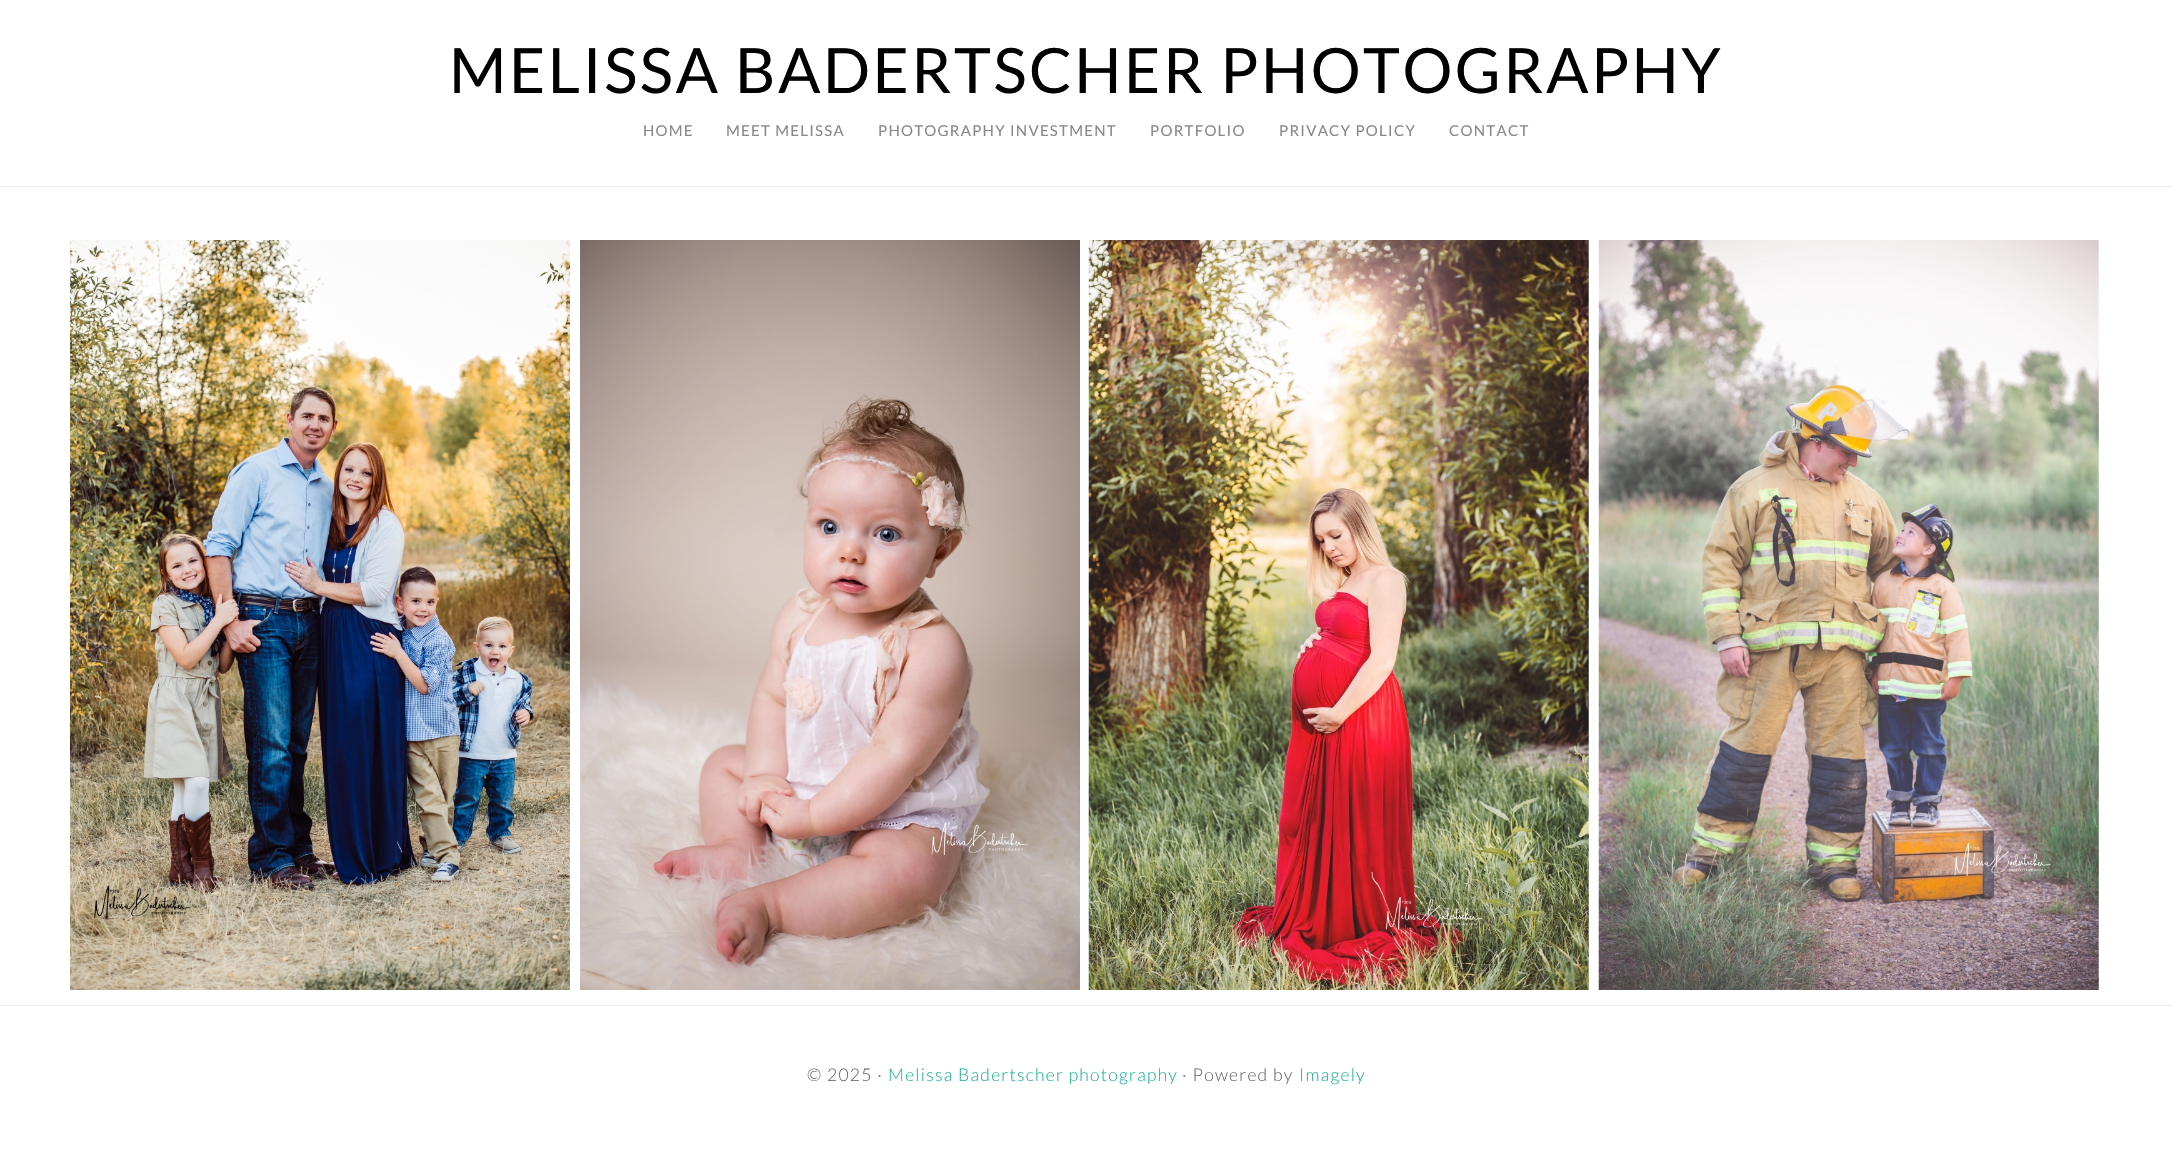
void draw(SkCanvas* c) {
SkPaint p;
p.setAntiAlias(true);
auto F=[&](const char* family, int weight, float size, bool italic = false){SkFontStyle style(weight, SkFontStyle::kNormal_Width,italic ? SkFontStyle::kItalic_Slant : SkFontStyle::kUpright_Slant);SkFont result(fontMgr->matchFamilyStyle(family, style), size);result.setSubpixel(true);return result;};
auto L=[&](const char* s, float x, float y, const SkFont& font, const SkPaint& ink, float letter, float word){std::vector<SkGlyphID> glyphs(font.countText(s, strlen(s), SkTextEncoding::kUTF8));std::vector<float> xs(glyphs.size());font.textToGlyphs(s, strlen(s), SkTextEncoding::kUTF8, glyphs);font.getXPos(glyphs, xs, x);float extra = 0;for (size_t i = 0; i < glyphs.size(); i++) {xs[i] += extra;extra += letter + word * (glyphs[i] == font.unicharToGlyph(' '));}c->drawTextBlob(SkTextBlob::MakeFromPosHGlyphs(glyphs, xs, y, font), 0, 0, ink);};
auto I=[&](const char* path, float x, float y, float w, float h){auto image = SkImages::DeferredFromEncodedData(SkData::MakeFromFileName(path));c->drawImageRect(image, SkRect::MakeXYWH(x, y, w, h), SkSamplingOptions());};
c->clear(0xffffffff);
auto f1 = F("Lato",400,62.5);
p.setColor(0xff000000);
L("MELISSA BADERTSCHER PHOTOGRAPHY",449,93,f1,p,2.5,0);
auto f2 = F("Lato",400,15);
p.setColor(0xff888888);
L("HOME",643,136,f2,p,1.25,0);
L("MEET MELISSA",726,136,f2,p,1.25,0);
L("PHOTOGRAPHY INVESTMENT",878,136,f2,p,1.25,0);
L("PORTFOLIO",1150,136,f2,p,1.25,0);
L("PRIVACY POLICY",1279,136,f2,p,1.25,0);
L("CONTACT",1449,136,f2,p,1.25,0);
p.setStroke(true);
p.setStrokeWidth(1);
p.setColor(0xffeeeeee);
c->drawRect(SkRect::MakeXYWH(-.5,186.5,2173,819),p);
I("1.png",70,240,500,750);
I("2.png",580,240,500,750);
I("3.png",1088,240,501,750);
I("4.png",1598,240,501,750);
auto f3 = F("Lato",300,17.5);
p.setStroke(false);
p.setColor(0xff666666);
L("© 2025 ·",807,1081,f3,p,1.25,0);
p.setColor(0xff1cb495);
L("Melissa Badertscher photography",888,1081,f3,p,1.25,0);
p.setColor(0xff666666);
L("· Powered by",1182,1081,f3,p,1.25,0);
p.setColor(0xff1cb495);
L("Imagely",1299,1081,f3,p,1.25,0);
}
